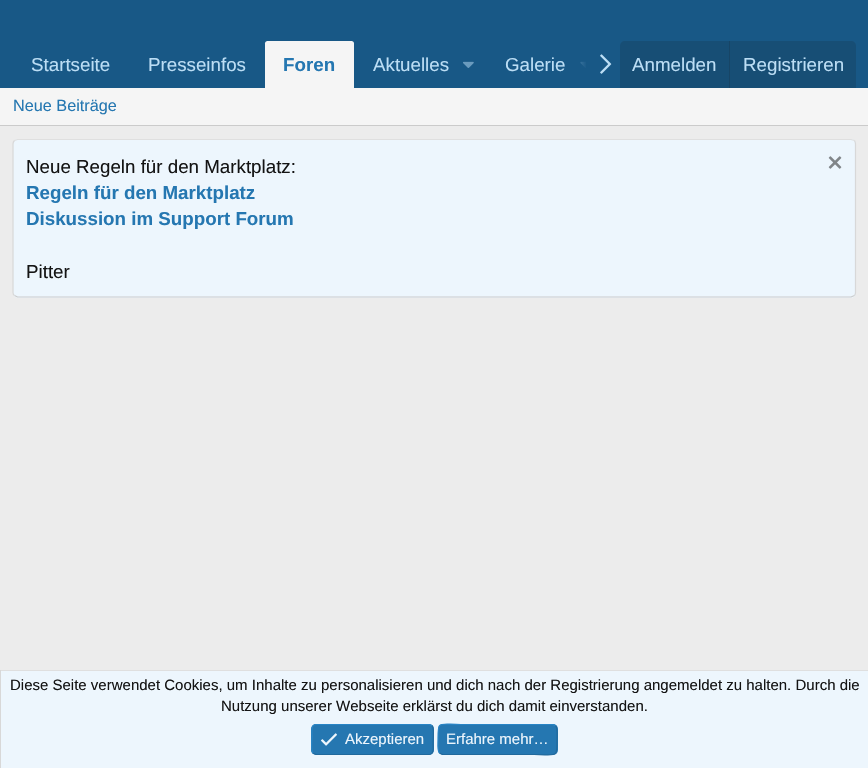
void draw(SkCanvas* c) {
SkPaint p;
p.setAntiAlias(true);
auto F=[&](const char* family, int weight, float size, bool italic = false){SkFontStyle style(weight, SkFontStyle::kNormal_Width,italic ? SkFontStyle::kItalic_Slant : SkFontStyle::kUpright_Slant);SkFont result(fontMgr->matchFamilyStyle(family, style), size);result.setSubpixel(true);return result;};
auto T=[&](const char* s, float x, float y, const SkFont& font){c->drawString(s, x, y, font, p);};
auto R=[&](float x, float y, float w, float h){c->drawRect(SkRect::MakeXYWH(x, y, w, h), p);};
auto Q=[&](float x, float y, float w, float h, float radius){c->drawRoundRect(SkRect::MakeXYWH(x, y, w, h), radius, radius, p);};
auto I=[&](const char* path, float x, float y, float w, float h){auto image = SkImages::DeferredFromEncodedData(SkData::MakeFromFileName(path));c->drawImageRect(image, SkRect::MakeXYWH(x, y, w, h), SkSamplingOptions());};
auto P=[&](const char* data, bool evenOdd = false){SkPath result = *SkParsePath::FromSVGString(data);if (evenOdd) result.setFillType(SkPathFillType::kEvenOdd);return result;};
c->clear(0xffececec);
p.setColor(0xff185886);
R(0,0,868,88);
auto f1 = F("Liberation Sans",400,18.75);
p.setColor(0xffbcdef5);
T("Startseite",31,71,f1);
T("Presseinfos",148,71,f1);
p.setColor(0xfff5f5f5);
c->drawPath(P("M267.5 41h84c1.5 0 2.5 1 2.5 2.5v44.5h-89v-44.5c0-1.5 1-2.5 2.5-2.5z"),p);
auto f2 = F("Liberation Sans",700,18.75);
p.setColor(0xff2577b1);
T("Foren",283,71,f2);
p.setColor(0xffbcdef5);
T("Aktuelles",373,71,f1);
I("1.png",463,61,11,7);
T("Galerie",505,71,f1);
I("2.png",580,61,6,7);
{
const SkColor colors[] = {0x00185886,0xff185886};
const float stops[] = {0,.33};
const SkPoint ends[] = {{570,64}, {620,64}};
p.setShader(SkGradientShader::MakeLinear(ends, colors, stops, 2, SkTileMode::kClamp));
p.setAlpha(255);
}
R(580,61,6,7);
I("3.png",600,54,12,20);
p.setShader(nullptr);
p.setColor(0xff174e75);
c->drawPath(P("M625 41h226c3 0 5 2 5 5v42h-236v-42c0-3 2-5 5-5z"),p);
p.setColor(0xffbcdef5);
T("Anmelden",632,71,f1);
p.setColor(0xff174566);
R(729,41,1,47);
p.setColor(0xffbcdef5);
T("Registrieren",743,71,f1);
p.setColor(0xfff5f5f5);
R(0,88,868,37);
p.setColor(0xffcbcbcb);
R(0,125,868,1);
auto f3 = F("Liberation Sans",400,16.25);
p.setColor(0xff2577b1);
T("Neue Beiträge",13,111,f3);
p.setColor(0xffedf6fd);
Q(13,139,843,159,5);
p.setStroke(true);
p.setStrokeWidth(1.2);
p.setColor(0xffdfdfdf);
c->drawPath(P("M14.5 140.5l3-1h833.5l3.5 1"),p);
p.setColor(0xffd8d8d8);
c->drawPath(P("M854.5 140.5c.5 1 1 2 1 3.5v148.5c0 1-.5 2.5-1 3"),p);
p.setColor(0xffcbcbcb);
c->drawPath(P("M854.5 295.5l-3.5 1.5h-833.5l-3-1.5"),p);
p.setColor(0xffd8d8d8);
c->drawPath(P("M14.5 295.5c-1-.5-1.5-2-1.5-3v-148.5c0-1.5 .5-2.5 1.5-3.5"),p);
p.setStroke(false);
p.setColor(0xff141414);
T("Neue Regeln für den Marktplatz:",26,173,f1);
I("4.png",828,156,14,13);
p.setColor(0xff2577b1);
T("Regeln für den Marktplatz",26,199,f2);
T("Diskussion im Support Forum",26,225,f2);
p.setColor(0xff141414);
T("Pitter",26,278,f1);
p.setColor(0xffedf6fd);
R(1,671,867,97);
p.setColor(0xffdfdfdf);
R(0,670,868,1);
p.setColor(0xffd8d8d8);
R(0,670,1,98);
auto f4 = F("Liberation Sans",400,15);
p.setColor(0xff141414);
T("Diese Seite verwendet Cookies, um Inhalte zu personalisieren und dich nach der Registrierung angemeldet zu halten. Durch die",10,690,f4);
T("Nutzung unserer Webseite erklärst du dich damit einverstanden.",221,711,f4);
p.setColor(0xff2577b1);
Q(311,724,123,31,5);
p.setStroke(true);
p.setColor(0xff21699c);
c->drawPath(P("M432 725.5c2.5 3 1 14 1 17.5c0 3.5 1.5 11.5-4 11.5h-113l-3-1.5"),p);
p.setColor(0xff2985c6);
c->drawPath(P("M313 753c-2.5-2.5-1-13.5-1-17c0-3.5-1.5-11.5 4-11.5h113l3 1"),p);
I("5.png",321,733,16,13);
p.setStroke(false);
p.setColor(0xffedf6fd);
T("Akzeptieren",345,744,f4);
p.setColor(0xff2577b1);
Q(438,724,120,31,5);
p.setStroke(true);
p.setColor(0xff21699c);
c->drawPath(P("M555.5 725.5c2.5 3 1.5 10.5 1.5 14c0 19.5 .5 15-23 15h-91.5l-3-1.5"),p);
p.setColor(0xff2985c6);
c->drawPath(P("M439.5 753c-2.5-2.5-1.5-10.5-1.5-13.5c0-19.5-.5-15 23-15h91.5l3 1"),p);
p.setStroke(false);
p.setColor(0xffedf6fd);
T("Erfahre mehr…",446,744,f4);
}
